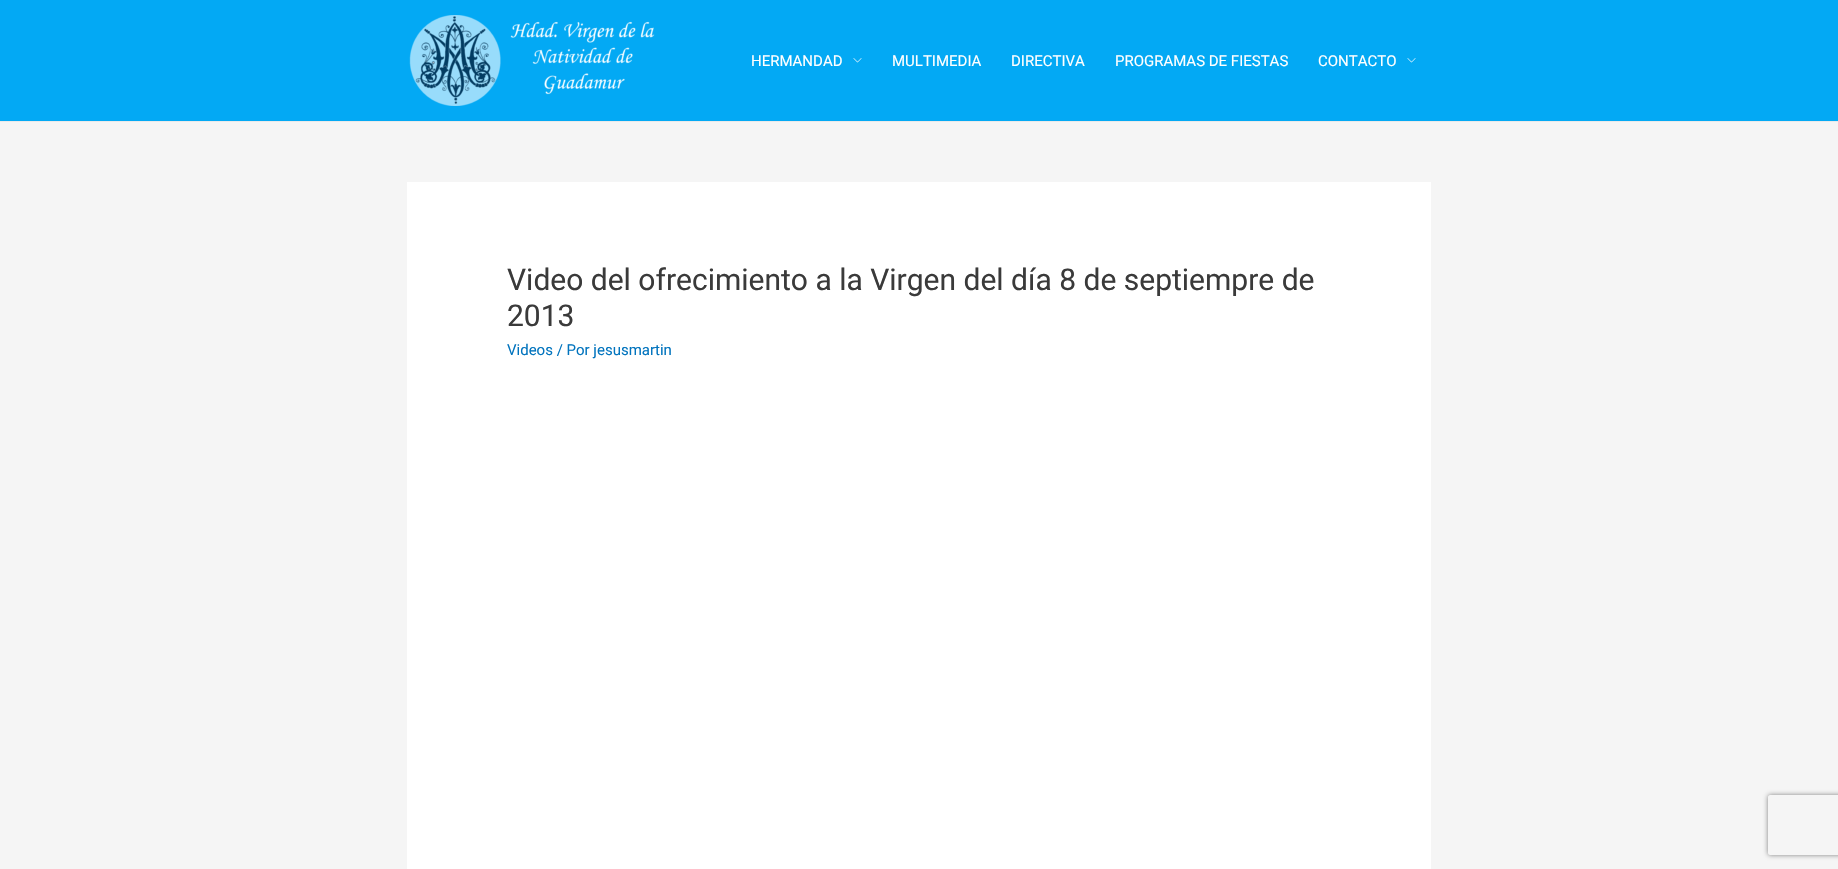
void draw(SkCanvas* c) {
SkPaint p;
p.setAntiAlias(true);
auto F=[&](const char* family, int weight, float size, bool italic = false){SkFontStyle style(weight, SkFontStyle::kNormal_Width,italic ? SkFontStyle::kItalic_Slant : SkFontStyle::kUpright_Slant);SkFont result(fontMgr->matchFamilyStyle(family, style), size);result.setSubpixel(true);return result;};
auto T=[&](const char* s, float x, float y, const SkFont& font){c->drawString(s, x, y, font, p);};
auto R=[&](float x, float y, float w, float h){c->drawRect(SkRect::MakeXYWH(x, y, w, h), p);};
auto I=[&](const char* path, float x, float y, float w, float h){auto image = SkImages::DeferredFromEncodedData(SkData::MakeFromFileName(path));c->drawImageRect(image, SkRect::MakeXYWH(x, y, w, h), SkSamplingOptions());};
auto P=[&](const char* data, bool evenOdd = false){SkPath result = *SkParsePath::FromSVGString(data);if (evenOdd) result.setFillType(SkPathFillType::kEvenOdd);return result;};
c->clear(0xfff5f5f5);
p.setColor(0xff03a9f4);
R(0,0,1838,121);
p.setColor(0xffeaeaea);
R(0,121,1838,1);
I("1.png",409,15,246,91);
auto f1 = F("Roboto",400,15);
p.setColor(0xffffffff);
T("HERMANDAD",751,66,f1);
I("2.png",853,58,9,5);
T("MULTIMEDIA",892,66,f1);
T("DIRECTIVA",1011,66,f1);
T("PROGRAMAS DE FIESTAS",1115,66,f1);
T("CONTACTO",1318,66,f1);
I("2.png",1407,58,9,5);
R(407,182,1024,687);
auto f2 = F("Roboto",400,30);
p.setColor(0xff3a3a3a);
T("Video del ofrecimiento a la Virgen del día 8 de septiempre de",507,290,f2);
T("2013",507,326,f2);
p.setColor(0xff0274be);
T("Videos / Por jesusmartin",507,355,f1);
c->save();
c->clipPath(P("M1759 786h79v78h-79zm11 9h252c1 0 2 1 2 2v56c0 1-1 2-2 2h-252c-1 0-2-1-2-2v-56c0-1 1-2 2-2z",true),true);
p.setColor(0xff808080);
p.setMaskFilter(SkMaskFilter::MakeBlur(kNormal_SkBlurStyle, 2.5));
c->drawRoundRect(SkRect::MakeXYWH(1768,795,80,60),2,2,p);
p.setMaskFilter(nullptr);
c->restore();
}
